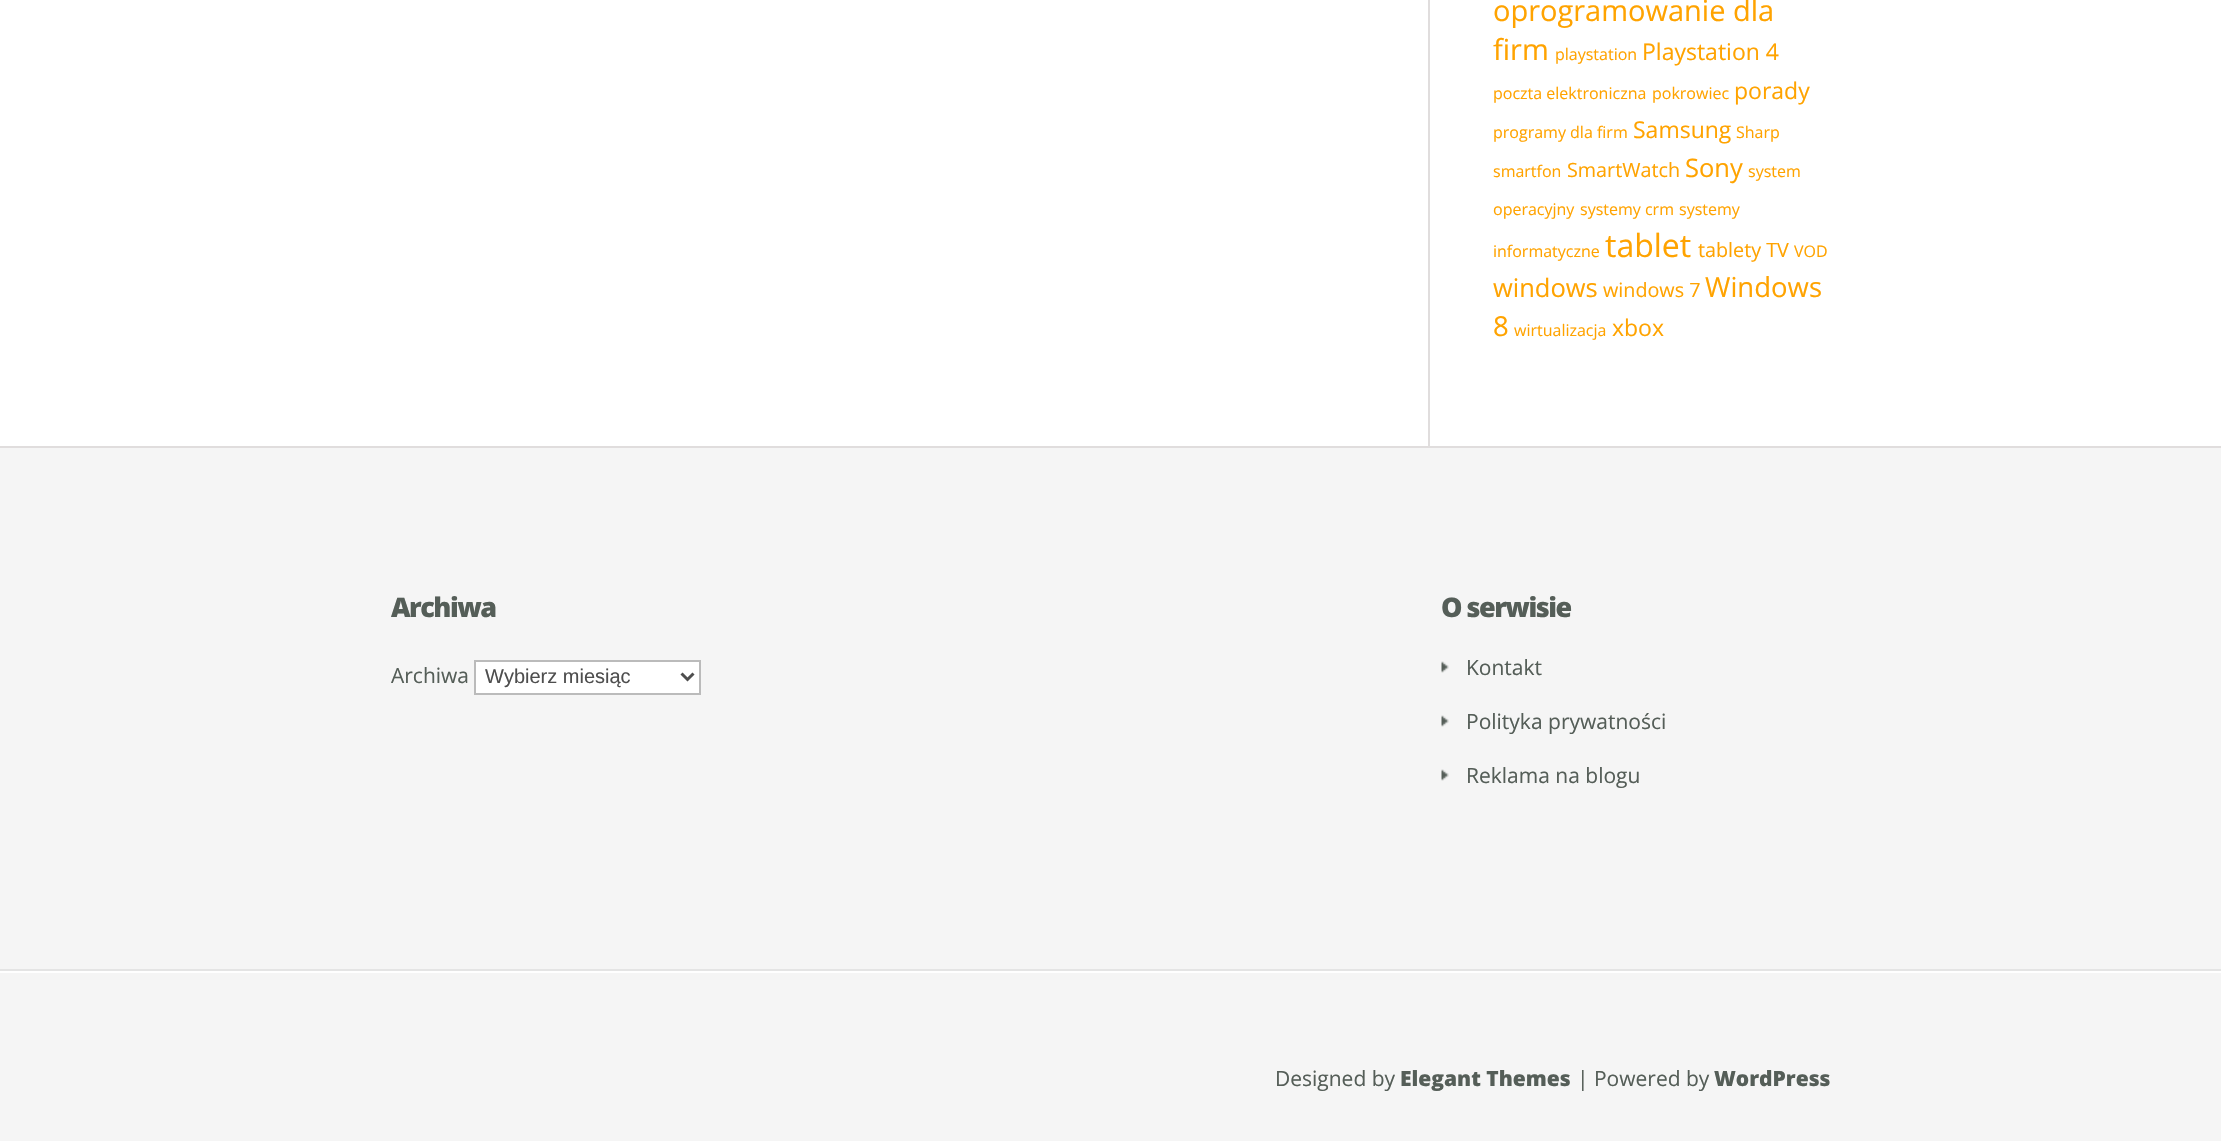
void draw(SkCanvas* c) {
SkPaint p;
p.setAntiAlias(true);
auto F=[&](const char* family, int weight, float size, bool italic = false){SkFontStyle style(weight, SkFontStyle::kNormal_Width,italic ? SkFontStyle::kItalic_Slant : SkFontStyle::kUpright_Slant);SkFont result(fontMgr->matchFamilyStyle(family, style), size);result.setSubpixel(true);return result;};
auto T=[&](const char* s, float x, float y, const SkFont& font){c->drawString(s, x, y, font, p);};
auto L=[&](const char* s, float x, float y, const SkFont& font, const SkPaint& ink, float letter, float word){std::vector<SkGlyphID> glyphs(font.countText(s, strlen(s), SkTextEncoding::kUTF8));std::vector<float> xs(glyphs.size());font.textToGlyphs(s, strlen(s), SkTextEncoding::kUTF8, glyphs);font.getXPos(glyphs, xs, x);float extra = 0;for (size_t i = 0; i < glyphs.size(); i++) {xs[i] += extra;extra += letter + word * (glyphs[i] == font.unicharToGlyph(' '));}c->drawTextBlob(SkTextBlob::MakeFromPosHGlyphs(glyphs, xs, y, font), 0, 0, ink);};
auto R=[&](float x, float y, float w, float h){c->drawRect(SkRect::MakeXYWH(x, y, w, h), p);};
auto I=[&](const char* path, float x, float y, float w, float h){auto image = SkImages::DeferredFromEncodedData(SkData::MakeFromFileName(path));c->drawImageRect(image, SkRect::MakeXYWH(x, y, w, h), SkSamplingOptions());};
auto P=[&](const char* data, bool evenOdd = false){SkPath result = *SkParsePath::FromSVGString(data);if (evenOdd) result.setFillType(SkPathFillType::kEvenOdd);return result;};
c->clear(0xfff5f5f5);
p.setColor(0xffffffff);
R(0,0,2221,446);
p.setColor(0xffe0dddd);
R(0,446,2221,2);
R(1428,0,2,446);
auto f1 = F("Open Sans",400,29);
p.setColor(0xffffa300);
T("oprogramowanie dla",1493,21,f1);
T("firm",1493,60,f1);
auto f2 = F("Open Sans",400,16);
T("playstation",1555,60,f2);
auto f3 = F("Open Sans",400,23);
T("Playstation 4",1642,60,f3);
T("poczta elektroniczna",1493,99,f2);
T("pokrowiec",1652,99,f2);
T("porady",1734,99,f3);
T("programy dla firm",1493,138,f2);
T("Samsung",1633,138,f3);
T("Sharp",1736,138,f2);
T("smartfon",1493,177,f2);
auto f4 = F("Open Sans",400,19.75);
T("SmartWatch",1567,177,f4);
auto f5 = F("Open Sans",400,25.5);
T("Sony",1685,177,f5);
T("system",1748,177,f2);
T("operacyjny",1493,215,f2);
T("systemy crm",1580,215,f2);
T("systemy",1679,215,f2);
T("informatyczne",1493,257,f2);
auto f6 = F("Open Sans",400,32);
T("tablet",1605,257,f6);
T("tablety TV",1698,257,f4);
T("VOD",1794,257,f2);
T("windows",1493,297,f5);
T("windows 7",1603,297,f4);
auto f7 = F("Open Sans",400,27.5);
T("Windows",1705,297,f7);
T("8",1493,336,f7);
T("wirtualizacja",1514,336,f2);
T("xbox",1612,336,f3);
auto f8 = F("Open Sans",800,27);
p.setColor(0xff555e58);
L("Archiwa",391,617,f8,p,-1.5,0);
auto f9 = F("Open Sans",400,21);
T("Archiwa",391,683,f9);
p.setColor(0xffffffff);
c->drawRect(SkRect::MakeXYWH(475,661,225,33),p);
p.setStroke(true);
p.setStrokeWidth(2);
p.setColor(0xffbbbbbb);
c->drawRect(SkRect::MakeXYWH(475,661,225,33),p);
p.setStrokeWidth(3);
p.setColor(0xff4e4e4e);
c->drawPath(P("M681.5 673.5l6 6l6-6"),p);
auto f10 = F("Liberation Sans",400,20);
p.setStroke(false);
T("Wybierz miesiąc",485,683,f10);
p.setColor(0xff555e58);
L("O serwisie",1441,617,f8,p,-1.5,0);
I("1.png",1441,661,8,12);
T("Kontakt",1466,675,f9);
I("1.png",1441,715,8,12);
T("Polityka prywatności",1466,729,f9);
I("1.png",1441,769,8,12);
T("Reklama na blogu",1466,783,f9);
p.setColor(0xffffffff);
R(0,971,2221,2);
p.setColor(0xffe4e4e4);
R(0,969,2221,2);
p.setColor(0xff555e58);
T("Designed by",1275,1086,f9);
auto f11 = F("Open Sans",800,21);
T("Elegant Themes",1400,1086,f11);
T("| Powered by",1577,1086,f9);
T("WordPress",1714,1086,f11);
}
